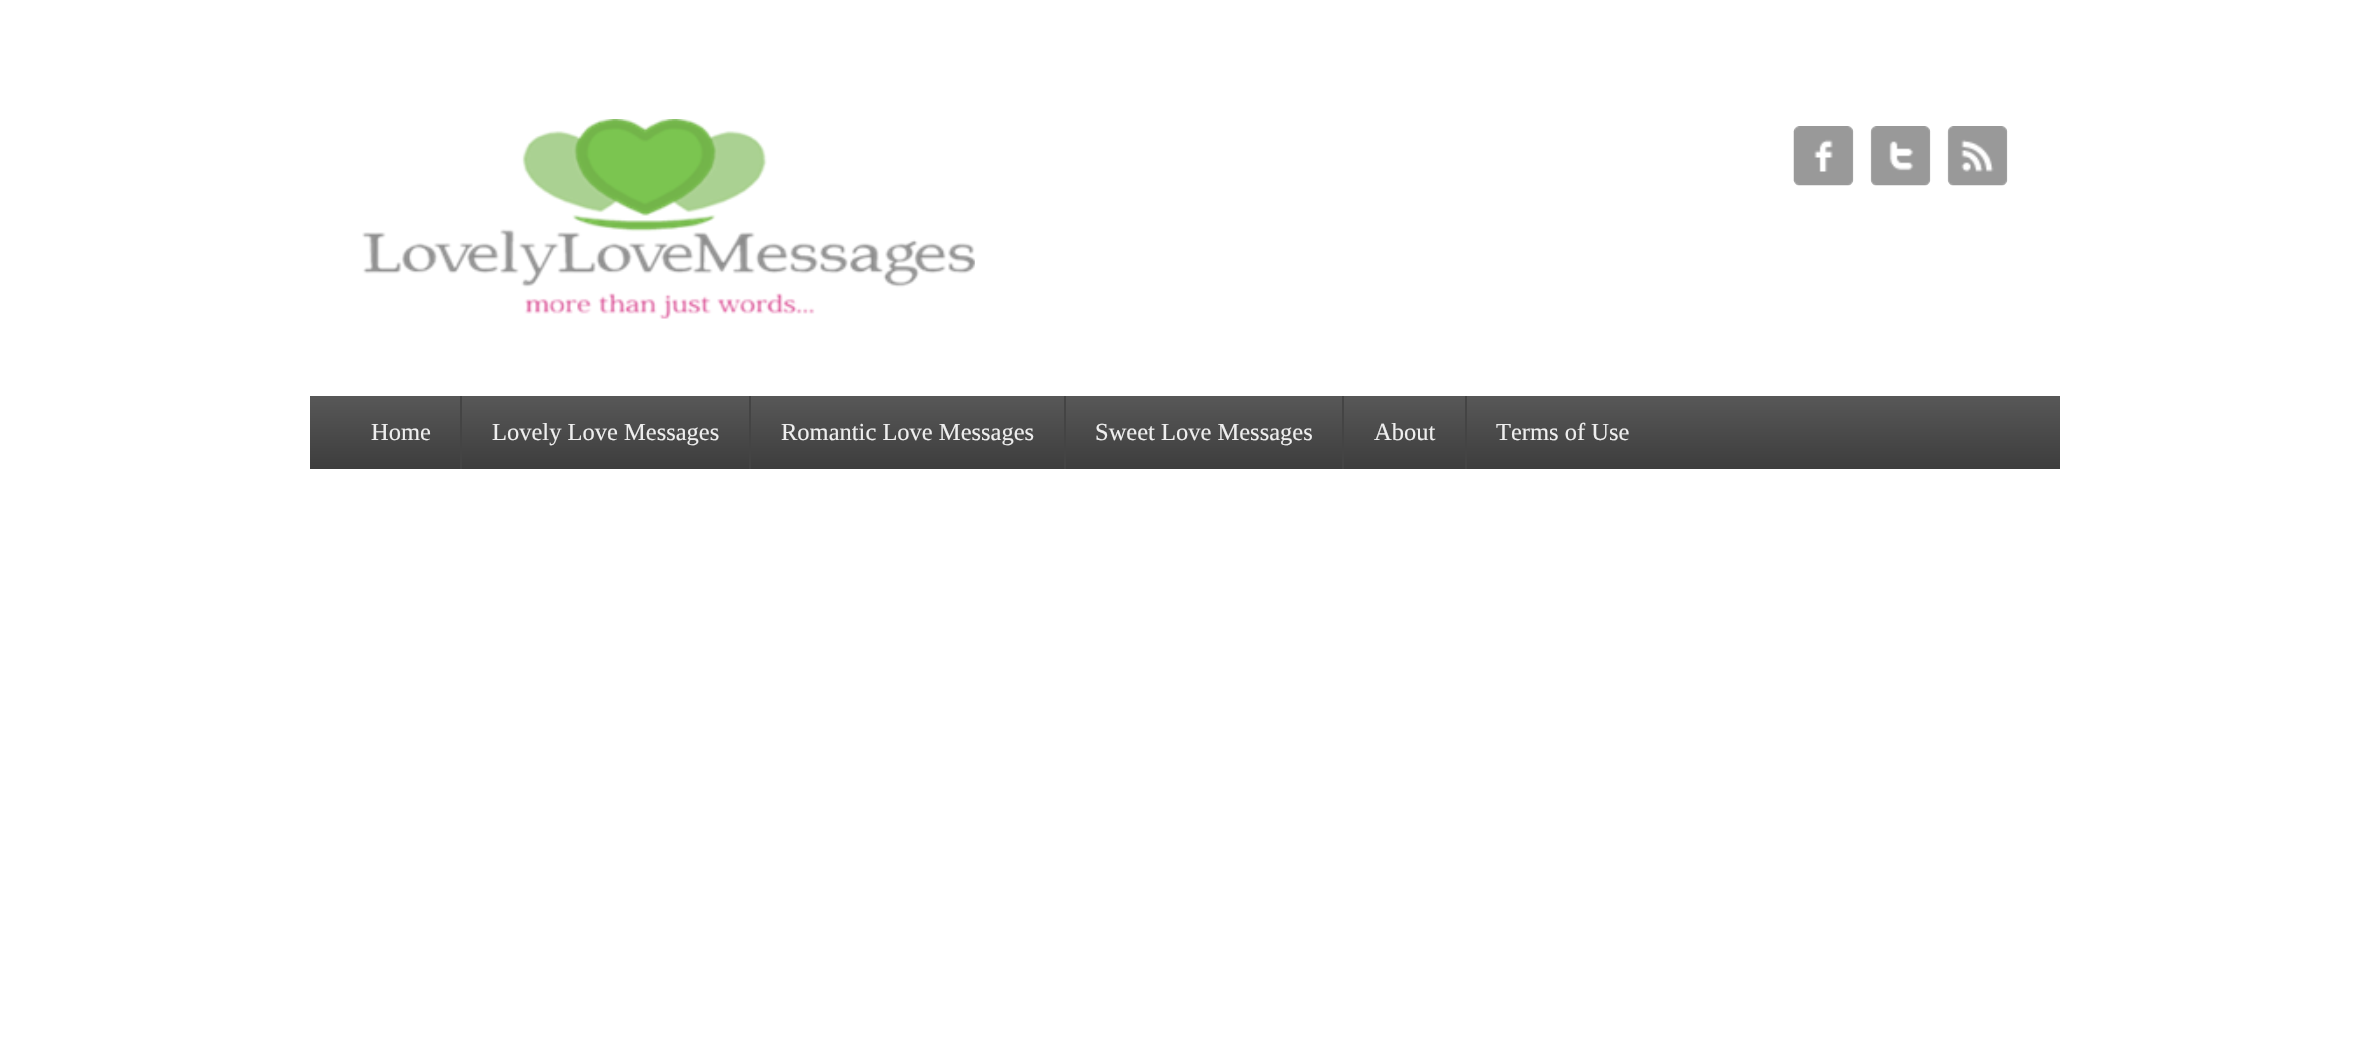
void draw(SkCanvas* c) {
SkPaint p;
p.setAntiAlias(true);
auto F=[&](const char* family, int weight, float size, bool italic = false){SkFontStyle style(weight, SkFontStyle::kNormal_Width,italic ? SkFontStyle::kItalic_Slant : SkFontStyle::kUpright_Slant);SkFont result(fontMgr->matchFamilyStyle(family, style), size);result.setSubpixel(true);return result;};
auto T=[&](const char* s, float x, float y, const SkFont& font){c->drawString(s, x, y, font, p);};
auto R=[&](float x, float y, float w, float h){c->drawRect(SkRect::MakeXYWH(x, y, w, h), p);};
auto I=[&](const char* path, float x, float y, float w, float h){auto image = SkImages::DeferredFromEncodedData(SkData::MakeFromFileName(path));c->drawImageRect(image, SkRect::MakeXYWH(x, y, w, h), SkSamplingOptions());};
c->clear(0xffffffff);
I("1.png",362,119,613,200);
I("2.png",1793,126,61,60);
I("3.png",1870,126,61,60);
I("4.png",1947,126,61,60);
{
const SkColor colors[] = {0xff585858,0xff3d3d3d};
const float stops[] = {0,1};
const SkPoint ends[] = {{1185,395}, {1185,469}};
p.setShader(SkGradientShader::MakeLinear(ends, colors, stops, 2, SkTileMode::kClamp));
p.setAlpha(255);
}
R(310,396,1750,73);
p.setShader(nullptr);
p.setColor(0xff444444);
R(460,396,2,73);
auto f1 = F("Liberation Serif",400,24.5);
p.setColor(0xffeeeeee);
T("Home",371,440,f1);
p.setColor(0xff444444);
R(749,396,2,73);
p.setColor(0xffeeeeee);
T("Lovely Love Messages",492,440,f1);
p.setColor(0xff444444);
R(1064,396,2,73);
p.setColor(0xffeeeeee);
T("Romantic Love Messages",781,440,f1);
p.setColor(0xff444444);
R(1342,396,2,73);
p.setColor(0xffeeeeee);
T("Sweet Love Messages",1095,440,f1);
p.setColor(0xff444444);
R(1465,396,2,73);
p.setColor(0xffeeeeee);
T("About",1374,440,f1);
T("Terms of Use",1496,440,f1);
}
